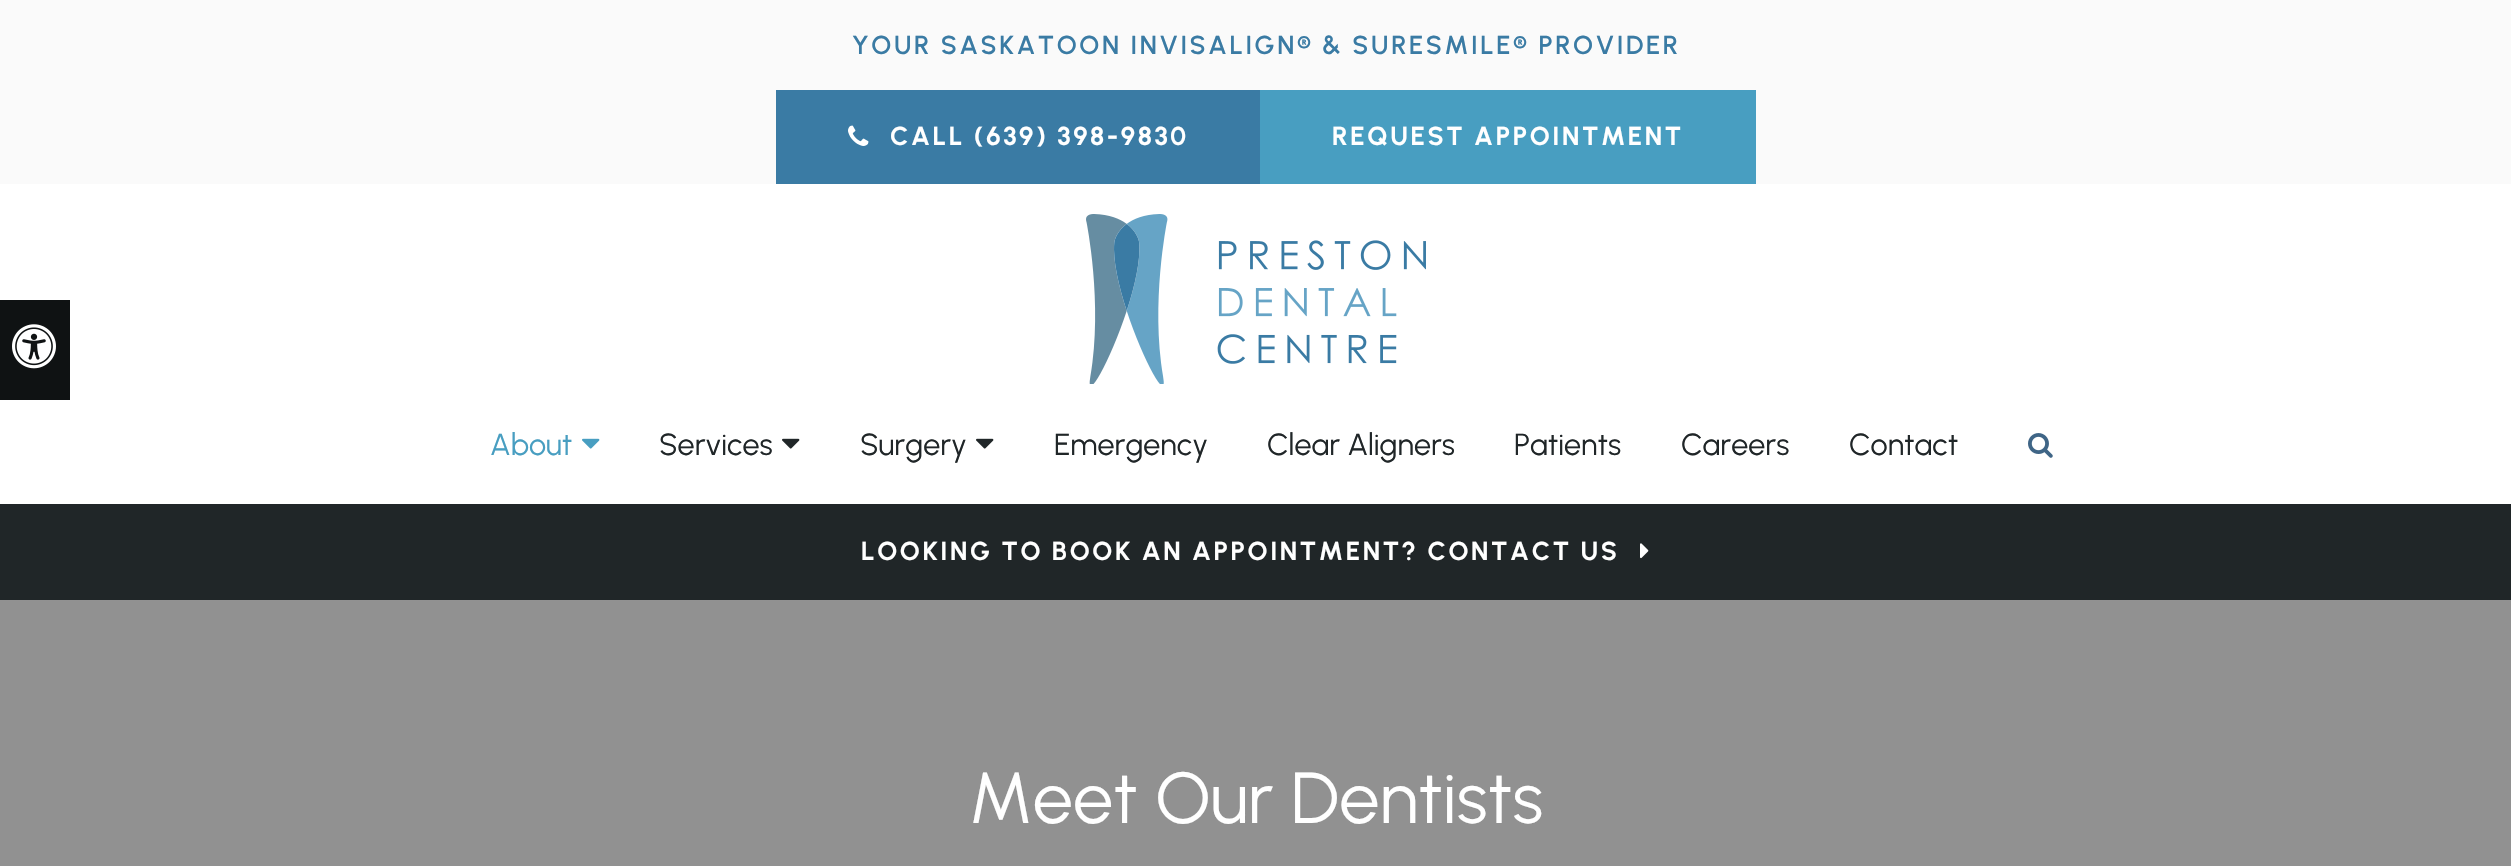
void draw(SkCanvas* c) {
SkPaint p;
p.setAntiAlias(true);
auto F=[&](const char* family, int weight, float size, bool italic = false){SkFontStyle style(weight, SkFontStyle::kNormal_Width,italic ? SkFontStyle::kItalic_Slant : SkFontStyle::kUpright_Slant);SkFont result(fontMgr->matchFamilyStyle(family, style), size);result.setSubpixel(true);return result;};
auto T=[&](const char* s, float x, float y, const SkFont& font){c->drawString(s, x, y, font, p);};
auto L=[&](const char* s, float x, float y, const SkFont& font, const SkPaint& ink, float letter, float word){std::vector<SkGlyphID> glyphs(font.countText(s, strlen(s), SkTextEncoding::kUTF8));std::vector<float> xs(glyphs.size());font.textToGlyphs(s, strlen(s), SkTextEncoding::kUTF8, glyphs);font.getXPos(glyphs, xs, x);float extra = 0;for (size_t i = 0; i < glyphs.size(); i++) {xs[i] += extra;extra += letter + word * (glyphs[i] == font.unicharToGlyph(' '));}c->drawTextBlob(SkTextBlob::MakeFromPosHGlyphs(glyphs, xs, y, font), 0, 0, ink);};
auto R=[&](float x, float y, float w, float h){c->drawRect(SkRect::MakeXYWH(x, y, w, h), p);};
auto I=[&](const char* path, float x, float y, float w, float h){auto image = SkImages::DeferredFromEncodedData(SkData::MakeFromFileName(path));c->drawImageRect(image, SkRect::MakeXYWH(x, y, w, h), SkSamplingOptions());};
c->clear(0xff202628);
p.setColor(0xffffffff);
R(0,184,2511,320);
p.setColor(0xff0f1213);
R(0,300,70,100);
I("1.png",12,324,44,45);
p.setColor(0xfffafafa);
R(0,0,2511,184);
auto f1 = F("Urbanist",600,26);
p.setColor(0xff3a7ba4);
L("YOUR SASKATOON INVISALIGN® & SURESMILE® PROVIDER",852,54,f1,p,2.6,0);
R(776,90,484,94);
I("2.png",848,125,21,21);
auto f2 = F("Urbanist",700,26);
p.setColor(0xffffffff);
L("CALL (639) 398-9830",890,145,f2,p,2.6,0);
p.setColor(0xff489ec1);
R(1260,90,496,94);
p.setColor(0xffffffff);
L("REQUEST APPOINTMENT",1332,145,f2,p,2.6,0);
I("3.png",1086,214,340,170);
auto f3 = F("Urbanist",400,30.5);
p.setColor(0xff489ec1);
T("About",490,455,f3);
I("4.png",582,438,18,11);
p.setColor(0xff202628);
T("Services",659,455,f3);
I("5.png",782,438,18,11);
T("Surgery",860,455,f3);
I("5.png",976,438,18,11);
T("Emergency",1054,455,f3);
T("Clear Aligners",1267,455,f3);
T("Patients",1514,455,f3);
T("Careers",1681,455,f3);
T("Contact",1849,455,f3);
I("6.png",2028,433,25,25);
p.setColor(0xffffffff);
L("LOOKING TO BOOK AN APPOINTMENT? CONTACT US",861,560,f2,p,2.6,0);
I("7.png",1640,543,9,16);
p.setColor(0xff919191);
R(0,600,2511,266);
auto f4 = F("Urbanist",400,72);
p.setColor(0xffffffff);
T("Meet Our Dentists",969,823,f4);
}
